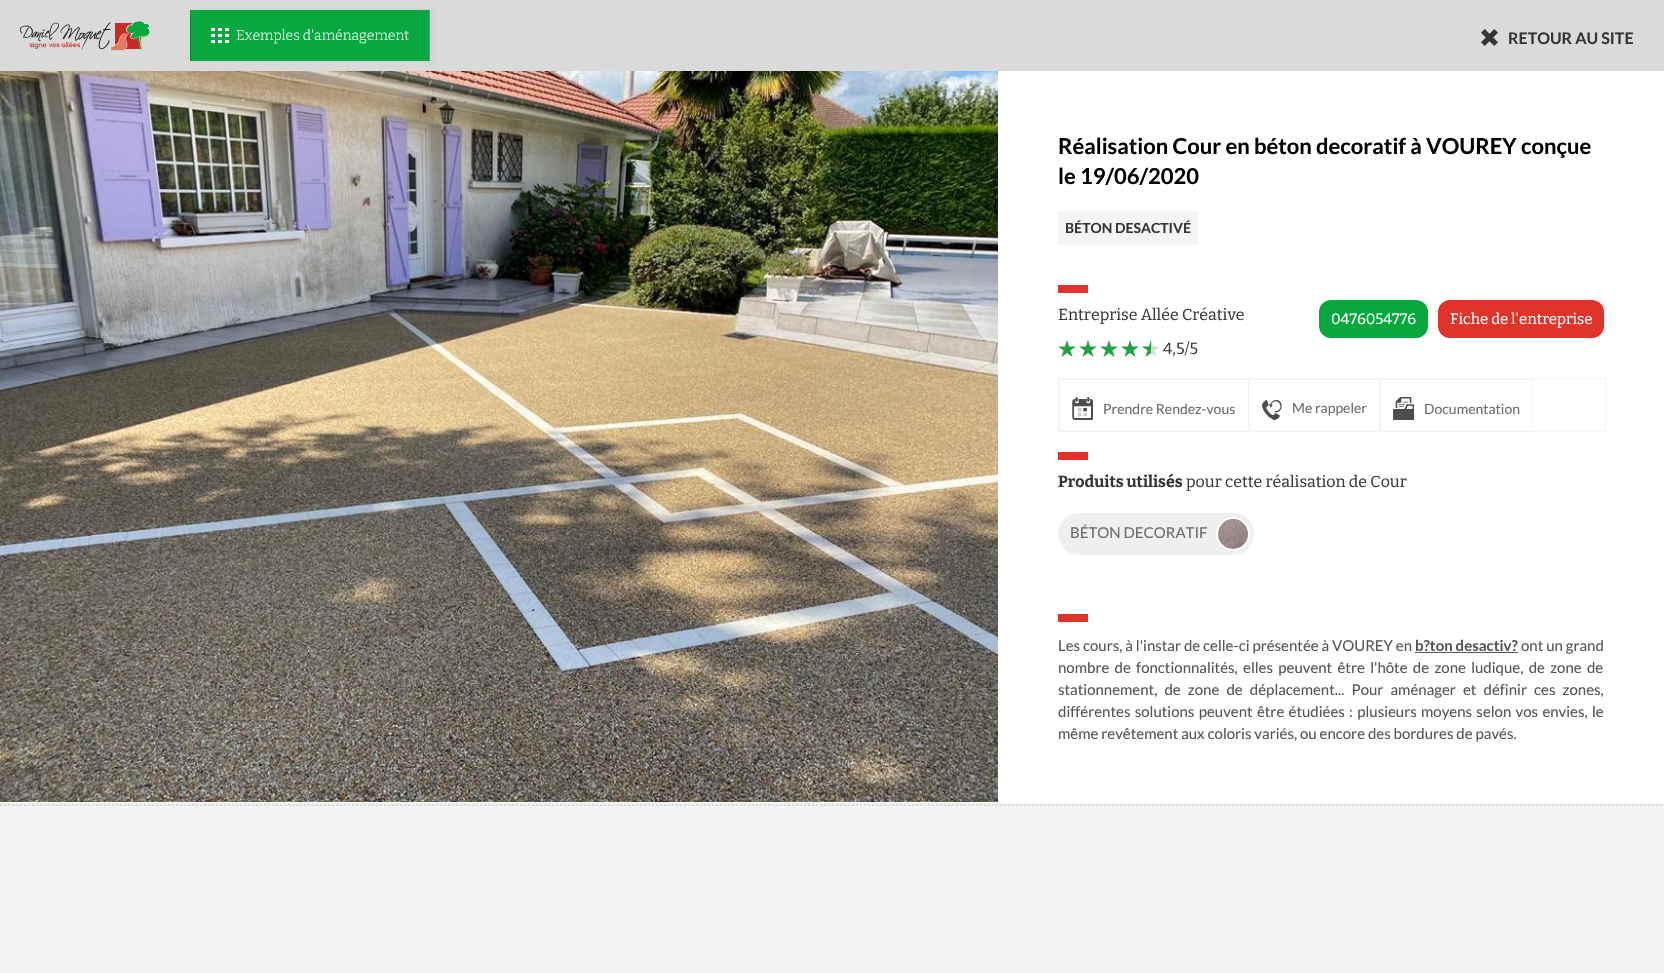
void draw(SkCanvas* c) {
SkPaint p;
p.setAntiAlias(true);
auto F=[&](const char* family, int weight, float size, bool italic = false){SkFontStyle style(weight, SkFontStyle::kNormal_Width,italic ? SkFontStyle::kItalic_Slant : SkFontStyle::kUpright_Slant);SkFont result(fontMgr->matchFamilyStyle(family, style), size);result.setSubpixel(true);return result;};
auto T=[&](const char* s, float x, float y, const SkFont& font){c->drawString(s, x, y, font, p);};
auto L=[&](const char* s, float x, float y, const SkFont& font, const SkPaint& ink, float letter, float word){std::vector<SkGlyphID> glyphs(font.countText(s, strlen(s), SkTextEncoding::kUTF8));std::vector<float> xs(glyphs.size());font.textToGlyphs(s, strlen(s), SkTextEncoding::kUTF8, glyphs);font.getXPos(glyphs, xs, x);float extra = 0;for (size_t i = 0; i < glyphs.size(); i++) {xs[i] += extra;extra += letter + word * (glyphs[i] == font.unicharToGlyph(' '));}c->drawTextBlob(SkTextBlob::MakeFromPosHGlyphs(glyphs, xs, y, font), 0, 0, ink);};
auto R=[&](float x, float y, float w, float h){c->drawRect(SkRect::MakeXYWH(x, y, w, h), p);};
auto Q=[&](float x, float y, float w, float h, float radius){c->drawRoundRect(SkRect::MakeXYWH(x, y, w, h), radius, radius, p);};
auto I=[&](const char* path, float x, float y, float w, float h){auto image = SkImages::DeferredFromEncodedData(SkData::MakeFromFileName(path));c->drawImageRect(image, SkRect::MakeXYWH(x, y, w, h), SkSamplingOptions());};
auto P=[&](const char* data, bool evenOdd = false){SkPath result = *SkParsePath::FromSVGString(data);if (evenOdd) result.setFillType(SkPathFillType::kEvenOdd);return result;};
c->clear(0xfff4f4f4);
p.setColor(0xffeceded);
R(2,804,1662,2);
p.setStroke(true);
p.setStrokeWidth(2);
p.setColor(0xffdadada);
p.setPathEffect(SkDashPathEffect::Make({{2,2}}, 0));
c->drawPath(P("M0 805h1664"),p);
p.setPathEffect(nullptr);
p.setStroke(false);
R(0,0,1664,71);
I("1.png",19,20,131,31);
p.setColor(0xffcccccc);
p.setMaskFilter(SkMaskFilter::MakeBlur(kNormal_SkBlurStyle, 3));
c->drawRect(SkRect::MakeXYWH(192,10,240,51),p);
p.setMaskFilter(nullptr);
p.setColor(0xff07a83f);
R(191,10,238,51);
p.setColor(0xff09d14e);
R(429,10,1,51);
p.setColor(0xff068d35);
R(190,10,1,51);
I("2.png",211,28,18,15);
auto f1 = F("Bitter",300,14);
p.setColor(0xffffffff);
T("Exemples d'aménagement",236,40,f1);
I("3.png",1481,29,17,17);
auto f2 = F("Lato",700,16);
p.setColor(0xff353535);
T("RETOUR AU SITE",1508,44,f2);
I("4.png",0,71,998,731);
p.setColor(0xffffffff);
R(998,71,666,733);
auto f3 = F("Lato",700,22);
p.setColor(0xff000000);
T("Réalisation Cour en béton decoratif à VOUREY conçue",1058,154,f3);
T("le 19/06/2020",1058,184,f3);
p.setColor(0xfff4f4f4);
R(1058,211,140,34);
auto f4 = F("Lato",700,14);
p.setColor(0xff353535);
T("BÉTON DESACTIVÉ",1065,233,f4);
p.setColor(0xffe0332a);
R(1058,285,30,8);
auto f5 = F("Bitter",400,16);
p.setColor(0xff353535);
T("Entreprise Allée Créative",1058,320,f5);
p.setColor(0xff07a83f);
Q(1319,300,109,38,12);
auto f6 = F("Bitter",400,15);
p.setColor(0xffffffff);
T("0476054776",1331,324,f6);
p.setColor(0xffe0332a);
Q(1438,300,166,38,12);
p.setColor(0xffffffff);
T("Fiche de l'entreprise",1450,324,f6);
I("5.png",1058,340,18,17);
I("5.png",1079,340,18,17);
I("5.png",1100,340,18,17);
I("5.png",1121,340,18,17);
I("6.png",1142,340,18,17);
p.setColor(0xff353535);
T("4,5/5",1163,354,f5);
p.setStroke(true);
p.setStrokeWidth(1);
p.setColor(0xfff4f4f4);
c->drawRect(SkRect::MakeXYWH(1058.5,378.5,547,53),p);
c->drawRect(SkRect::MakeXYWH(1059.5,379.5,189,51),p);
I("7.png",1072,397,21,23);
auto f7 = F("Lato",400,14);
p.setStroke(false);
p.setColor(0xff6b6b6b);
T("Prendre Rendez-vous",1103,414,f7);
p.setStroke(true);
p.setColor(0xfff4f4f4);
c->drawRect(SkRect::MakeXYWH(1249.5,379.5,130,51),p);
I("8.png",1262,400,20,20);
p.setStroke(false);
p.setColor(0xff6b6b6b);
T("Me rappeler",1292,413,f7);
p.setStroke(true);
p.setColor(0xfff4f4f4);
c->drawRect(SkRect::MakeXYWH(1380.5,379.5,152,51),p);
I("9.png",1393,397,21,23);
p.setStroke(false);
p.setColor(0xff6b6b6b);
T("Documentation",1424,414,f7);
p.setColor(0xffe0332a);
R(1058,452,30,8);
auto f8 = F("Bitter",700,16);
p.setColor(0xff353535);
T("Produits utilisés",1058,487,f8);
T("pour cette réalisation de Cour",1186,487,f5);
p.setColor(0xffefefef);
Q(1058,513,196,42,21);
auto f9 = F("Lato",400,15);
p.setColor(0xff6b6b6b);
T("BÉTON DECORATIF",1070,538,f9);
p.setStroke(true);
p.setStrokeWidth(2);
p.setColor(0xffffffff);
c->drawCircle(1233,534,16,p);
I("10.png",1218,519,30,30);
p.setStroke(false);
p.setColor(0xffe0332a);
R(1058,614,30,8);
p.setColor(0xff555555);
T("Les cours, à l'instar de celle-ci présentée à VOUREY en",1058,651,f9);
auto f10 = F("Lato",700,15);
T("b?ton desactiv?",1415,651,f10);
R(1415,652,103,1);
T("ont un grand",1521,651,f9);
L("nombre de fonctionnalités, elles peuvent être l'hôte de zone ludique, de zone de",1058,673,f9,p,0,2.4);
L("stationnement, de zone de déplacement... Pour aménager et définir ces zones,",1058,695,f9,p,0,4.25);
L("différentes solutions peuvent être étudiées : plusieurs moyens selon vos envies, le",1058,717,f9,p,0,1.4);
T("même revêtement aux coloris variés, ou encore des bordures de pavés.",1058,739,f9);
}
